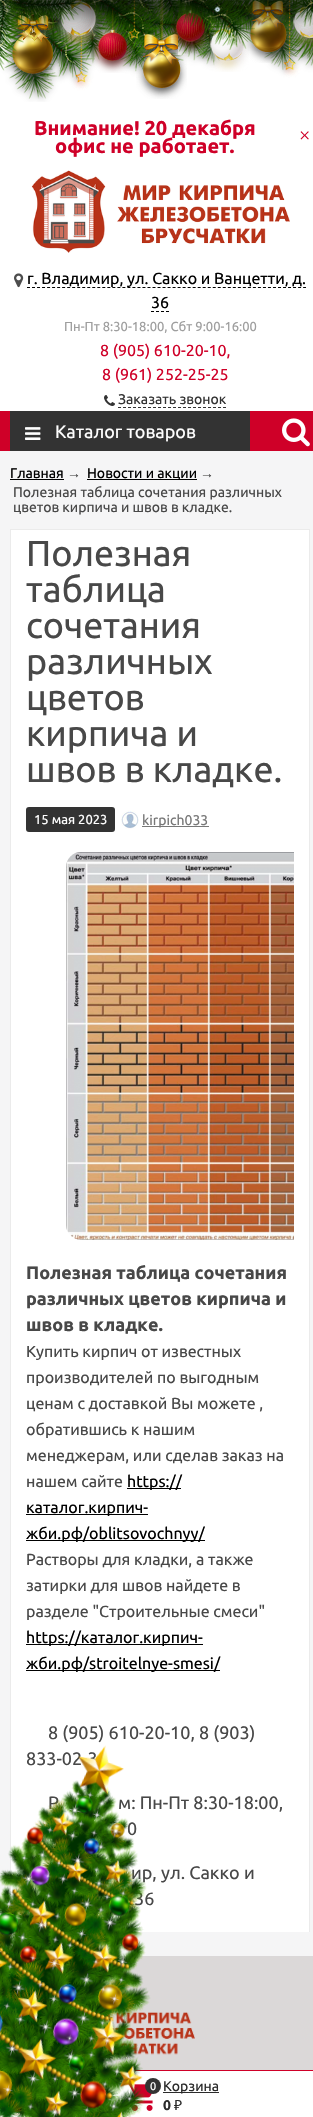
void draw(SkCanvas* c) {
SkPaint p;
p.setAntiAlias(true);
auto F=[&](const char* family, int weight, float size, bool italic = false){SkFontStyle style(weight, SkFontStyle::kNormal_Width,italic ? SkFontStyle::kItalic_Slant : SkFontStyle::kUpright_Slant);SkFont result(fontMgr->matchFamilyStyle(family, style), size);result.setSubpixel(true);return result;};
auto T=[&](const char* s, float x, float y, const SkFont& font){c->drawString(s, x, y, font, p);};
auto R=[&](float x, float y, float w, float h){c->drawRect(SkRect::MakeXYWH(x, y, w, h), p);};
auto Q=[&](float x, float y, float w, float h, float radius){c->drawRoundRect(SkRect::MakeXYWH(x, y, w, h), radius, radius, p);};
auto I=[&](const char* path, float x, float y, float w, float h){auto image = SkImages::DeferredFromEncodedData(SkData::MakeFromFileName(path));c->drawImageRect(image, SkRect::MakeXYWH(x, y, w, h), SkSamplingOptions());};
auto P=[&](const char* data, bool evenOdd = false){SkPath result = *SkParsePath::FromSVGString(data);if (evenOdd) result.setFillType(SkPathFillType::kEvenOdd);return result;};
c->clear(0xfff5f5f6);
p.setColor(0xffffffff);
R(0,0,313,169);
I("2.png",0,0,313,102);
I("7.png",136,0,51,99);
I("8.png",170,0,41,54);
I("14.png",204,6,45,66);
I("11.png",244,0,47,63);
I("10.png",205,0,50,50);
I("4.png",6,0,52,82);
I("3.png",0,0,25,71);
I("6.png",54,0,49,47);
I("5.png",25,0,61,27);
I("9.png",177,0,28,31);
I("12.png",287,0,26,49);
I("13.png",91,9,42,64);
I("15.png",289,0,24,27);
p.setColor(0xbf000000);
p.setMaskFilter(SkMaskFilter::MakeBlur(kNormal_SkBlurStyle, 15));
c->drawRect(SkRect::MakeXYWH(0,-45,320,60),p);
p.setMaskFilter(nullptr);
I("1.png",214,6,7,6);
auto f1 = F("Ubuntu",700,20);
p.setColor(0xffcf0028);
T("Внимание! 20 декабря",34,135,f1);
T("офис не работает.",55,153,f1);
auto f2 = F("Liberation Serif",400,20);
T("×",299,142,f2);
p.setColor(0xffffffff);
R(0,169,313,242);
I("16.png",31,170,259,83);
I("17.png",14,273,10,15);
auto f3 = F("Ubuntu",400,16);
p.setColor(0xff000000);
T("г. Владимир, ул. Сакко и Ванцетти, д.",27,284,f3);
p.setStroke(true);
p.setStrokeWidth(1);
p.setPathEffect(SkDashPathEffect::Make({{3,2.02f}}, 0));
c->drawPath(P("M27 287.5h279"),p);
p.setPathEffect(nullptr);
p.setStroke(false);
T("36",151,308,f3);
p.setStroke(true);
p.setPathEffect(SkDashPathEffect::Make({{3,2}}, 0));
c->drawPath(P("M151 311.5h18"),p);
p.setPathEffect(nullptr);
auto f4 = F("Ubuntu",400,13);
p.setStroke(false);
p.setColor(0xff9e9e9e);
T("Пн-Пт 8:30-18:00, Сбт 9:00-16:00",64,331,f4);
p.setColor(0xffcf0028);
T("8 (905) 610-20-10,",100,356,f3);
T("8 (961) 252-25-25",102,380,f3);
I("18.png",104,395,11,11);
auto f5 = F("Ubuntu",400,14);
p.setColor(0xff333333);
T("Заказать звонок",118,404,f5);
p.setStroke(true);
p.setPathEffect(SkDashPathEffect::Make({{3,2}}, 0));
c->drawPath(P("M118 407.5h108"),p);
p.setPathEffect(nullptr);
p.setStroke(false);
p.setColor(0xffcf0028);
R(0,411,313,40);
p.setColor(0xff333333);
R(10,411,240,40);
I("19.png",25,427,16,13);
auto f6 = F("Ubuntu",400,18);
p.setColor(0xffffffff);
T("Каталог товаров",55,438,f6);
I("20.png",282,418,28,29);
p.setColor(0xff000000);
T("Главная",10,478,f5);
R(10,479,54,1);
auto f7 = F("Liberation Sans",400,14);
p.setColor(0xff484848);
T("→",67,478,f7);
p.setColor(0xff000000);
R(87,479,110,1);
T("Новости и акции",87,478,f5);
p.setColor(0xff484848);
T("→",200,478,f7);
T("Полезная таблица сочетания различных",13,497,f5);
T("цветов кирпича и швов в кладке.",13,512,f5);
p.setColor(0xffffffff);
R(11,530,298,1402);
p.setColor(0xffebebeb);
R(10,529,300,1);
R(309,529,1,1403);
R(10,529,1,1374);
auto f8 = F("Ubuntu",400,36);
p.setColor(0xff484848);
T("Полезная",26,566,f8);
T("таблица",26,602,f8);
T("сочетания",26,638,f8);
T("различных",26,674,f8);
T("цветов",26,710,f8);
T("кирпича и",26,746,f8);
T("швов в кладке.",26,782,f8);
p.setColor(0xff333333);
Q(26,807,89,25,3);
p.setColor(0xffffffff);
T("15 мая 2023",34,824,f4);
I("21.png",121,810,18,19);
p.setColor(0xff777777);
R(142,826,67,1);
T("kirpich033",142,825,f5);
I("22.png",66,852,228,388);
auto f9 = F("Ubuntu",700,18);
p.setColor(0xff484848);
T("Полезная таблица сочетания",26,1279,f9);
T("различных цветов кирпича и",26,1305,f9);
T("швов в кладке.",26,1331,f9);
T("Купить кирпич от известных",26,1357,f3);
T("производителей по выгодным",26,1383,f3);
T("ценам с доставкой Вы можете ,",26,1409,f3);
T("обратившись к нашим",26,1435,f3);
T("менеджерам, или сделав заказ на",26,1461,f3);
T("нашем сайте",26,1487,f3);
p.setColor(0xff000000);
R(127,1488,54,1);
T("https://",127,1487,f3);
R(26,1514,122,1);
T("каталог.кирпич-",26,1513,f3);
R(26,1540,179,1);
T("жби.рф/oblitsovochnyy/",26,1539,f3);
p.setColor(0xff484848);
T("Растворы для кладки, а также",26,1565,f3);
T("затирки для швов найдете в",26,1591,f3);
T("разделе \"Строительные смеси\"",26,1617,f3);
p.setColor(0xff000000);
R(26,1644,177,1);
T("https://каталог.кирпич-",26,1643,f3);
R(26,1670,194,1);
T("жби.рф/stroitelnye-smesi/",26,1669,f3);
p.setColor(0xff484848);
T("8 (905) 610-20-10, 8 (903)",48,1739,f6);
T("833-02-3",26,1765,f6);
T("Р",48,1809,f6);
T("м: Пн-Пт 8:30-18:00,",118,1809,f6);
T("0",127,1835,f6);
T("ир, ул. Сакко и",131,1879,f6);
T("36",134,1905,f6);
p.setColor(0xffdbd8d8);
R(99,1956,214,114);
I("24.png",101,2011,94,44);
p.setColor(0xffffffff);
R(0,2071,313,46);
p.setColor(0xffcf0028);
R(113,2070,200,1);
I("25.png",126,2083,27,28);
p.setColor(0xff333333);
c->drawCircle(153,2086,8,p);
auto f10 = F("Ubuntu",400,11);
p.setColor(0xffffffff);
T("0",150,2090,f10);
I("23.png",0,1745,151,372);
p.setColor(0xff2b2b2b);
R(163,2092,56,1);
T("Корзина",163,2091,f5);
auto f11 = F("Ubuntu",700,14);
T("0",163,2110,f11);
auto f12 = F("Noto Sans",400,14);
T("₽",174,2110,f12);
}
